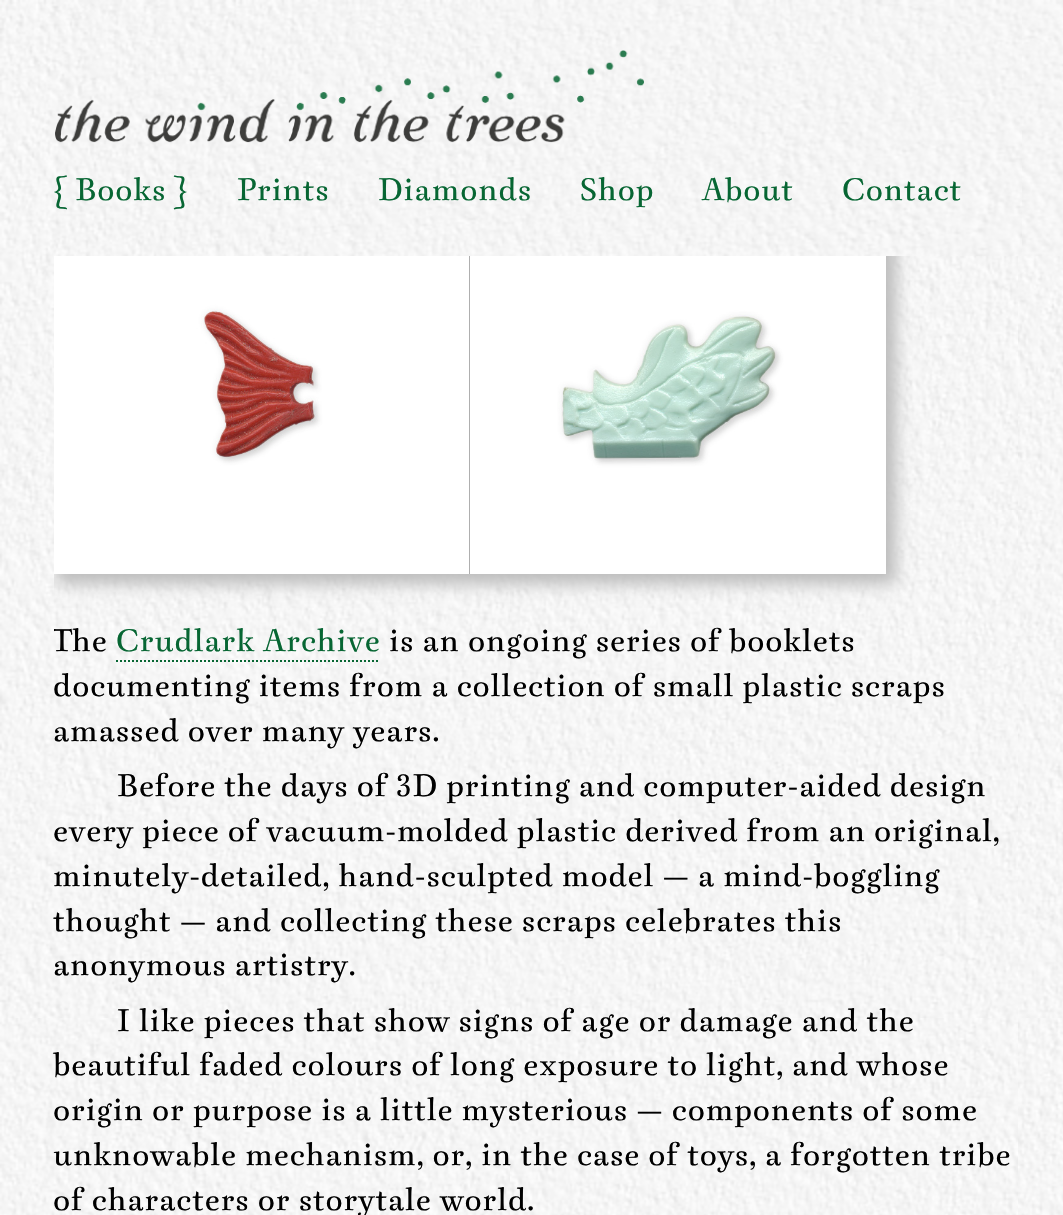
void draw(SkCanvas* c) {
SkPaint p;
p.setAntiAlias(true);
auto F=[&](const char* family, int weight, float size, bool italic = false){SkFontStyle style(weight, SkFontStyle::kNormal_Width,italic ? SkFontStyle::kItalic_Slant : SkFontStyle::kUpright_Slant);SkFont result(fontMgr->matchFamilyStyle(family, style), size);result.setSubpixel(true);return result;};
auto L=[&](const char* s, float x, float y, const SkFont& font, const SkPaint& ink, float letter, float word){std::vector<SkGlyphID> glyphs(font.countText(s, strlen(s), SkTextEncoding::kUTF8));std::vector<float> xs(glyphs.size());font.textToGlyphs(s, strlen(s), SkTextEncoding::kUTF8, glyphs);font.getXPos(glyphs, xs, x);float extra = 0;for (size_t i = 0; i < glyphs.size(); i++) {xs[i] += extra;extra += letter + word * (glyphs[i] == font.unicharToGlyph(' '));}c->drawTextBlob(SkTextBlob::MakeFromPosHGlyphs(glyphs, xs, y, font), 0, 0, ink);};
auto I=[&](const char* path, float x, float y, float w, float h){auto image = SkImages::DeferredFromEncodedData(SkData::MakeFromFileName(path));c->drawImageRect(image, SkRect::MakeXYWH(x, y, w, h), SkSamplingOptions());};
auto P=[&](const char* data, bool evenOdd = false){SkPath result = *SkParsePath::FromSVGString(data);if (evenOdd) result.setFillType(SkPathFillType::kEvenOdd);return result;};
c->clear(0xffffffff);
I("1.png",0,0,1063,1215);
c->save();
c->clipRect(SkRect::MakeXYWH(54,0,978,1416));
p.setColor(0xffbbbbbb);
p.setMaskFilter(SkMaskFilter::MakeBlur(kNormal_SkBlurStyle, 8));
c->drawRect(SkRect::MakeXYWH(56,208,840,376),p);
p.setMaskFilter(nullptr);
c->restore();
I("2.png",54,0,1009,256);
I("3.png",55,50,589,93);
auto f1 = F("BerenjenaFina",400,32);
p.setColor(0xff076633);
L("{ Books }",53,200,f1,p,.8,0);
L("Prints",237,200,f1,p,.8,0);
L("Diamonds",378,200,f1,p,.8,0);
L("Shop",580,200,f1,p,.8,0);
L("About",702,200,f1,p,.8,0);
L("Contact",842,200,f1,p,.8,0);
I("4.png",54,256,832,318);
c->save();
c->clipRect(SkRect::MakeXYWH(54,0,978,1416));
p.setColor(0xff000000);
L("The",53,651,f1,p,.8,0);
c->restore();
p.setColor(0xff076633);
L("Crudlark Archive",116,651,f1,p,.8,0);
p.setStroke(true);
p.setStrokeWidth(2);
p.setPathEffect(SkDashPathEffect::Make({{2,2}}, 0));
c->drawPath(P("M116 661h264"),p);
p.setPathEffect(nullptr);
p.setStroke(false);
p.setColor(0xff000000);
L("is an ongoing series of booklets",389,651,f1,p,.8,0);
L("documenting items from a collection of small plastic scraps",53,696,f1,p,.8,0);
L("amassed over many years.",53,741,f1,p,.8,0);
L("Before the days of 3D printing and computer-aided design",117,796,f1,p,.8,0);
L("every piece of vacuum-molded plastic derived from an original,",53,841,f1,p,.8,0);
L("minutely-detailed, hand-sculpted model — a mind-boggling",53,886,f1,p,.8,0);
L("thought — and collecting these scraps celebrates this",53,931,f1,p,.8,0);
L("anonymous artistry.",53,975,f1,p,.8,0);
L("I like pieces that show signs of age or damage and the",117,1031,f1,p,.8,0);
L("beautiful faded colours of long exposure to light, and whose",53,1075,f1,p,.8,0);
L("origin or purpose is a little mysterious — components of some",53,1120,f1,p,.8,0);
L("unknowable mechanism, or, in the case of toys, a forgotten tribe",53,1165,f1,p,.8,0);
L("of characters or storytale world.",53,1210,f1,p,.8,0);
}
